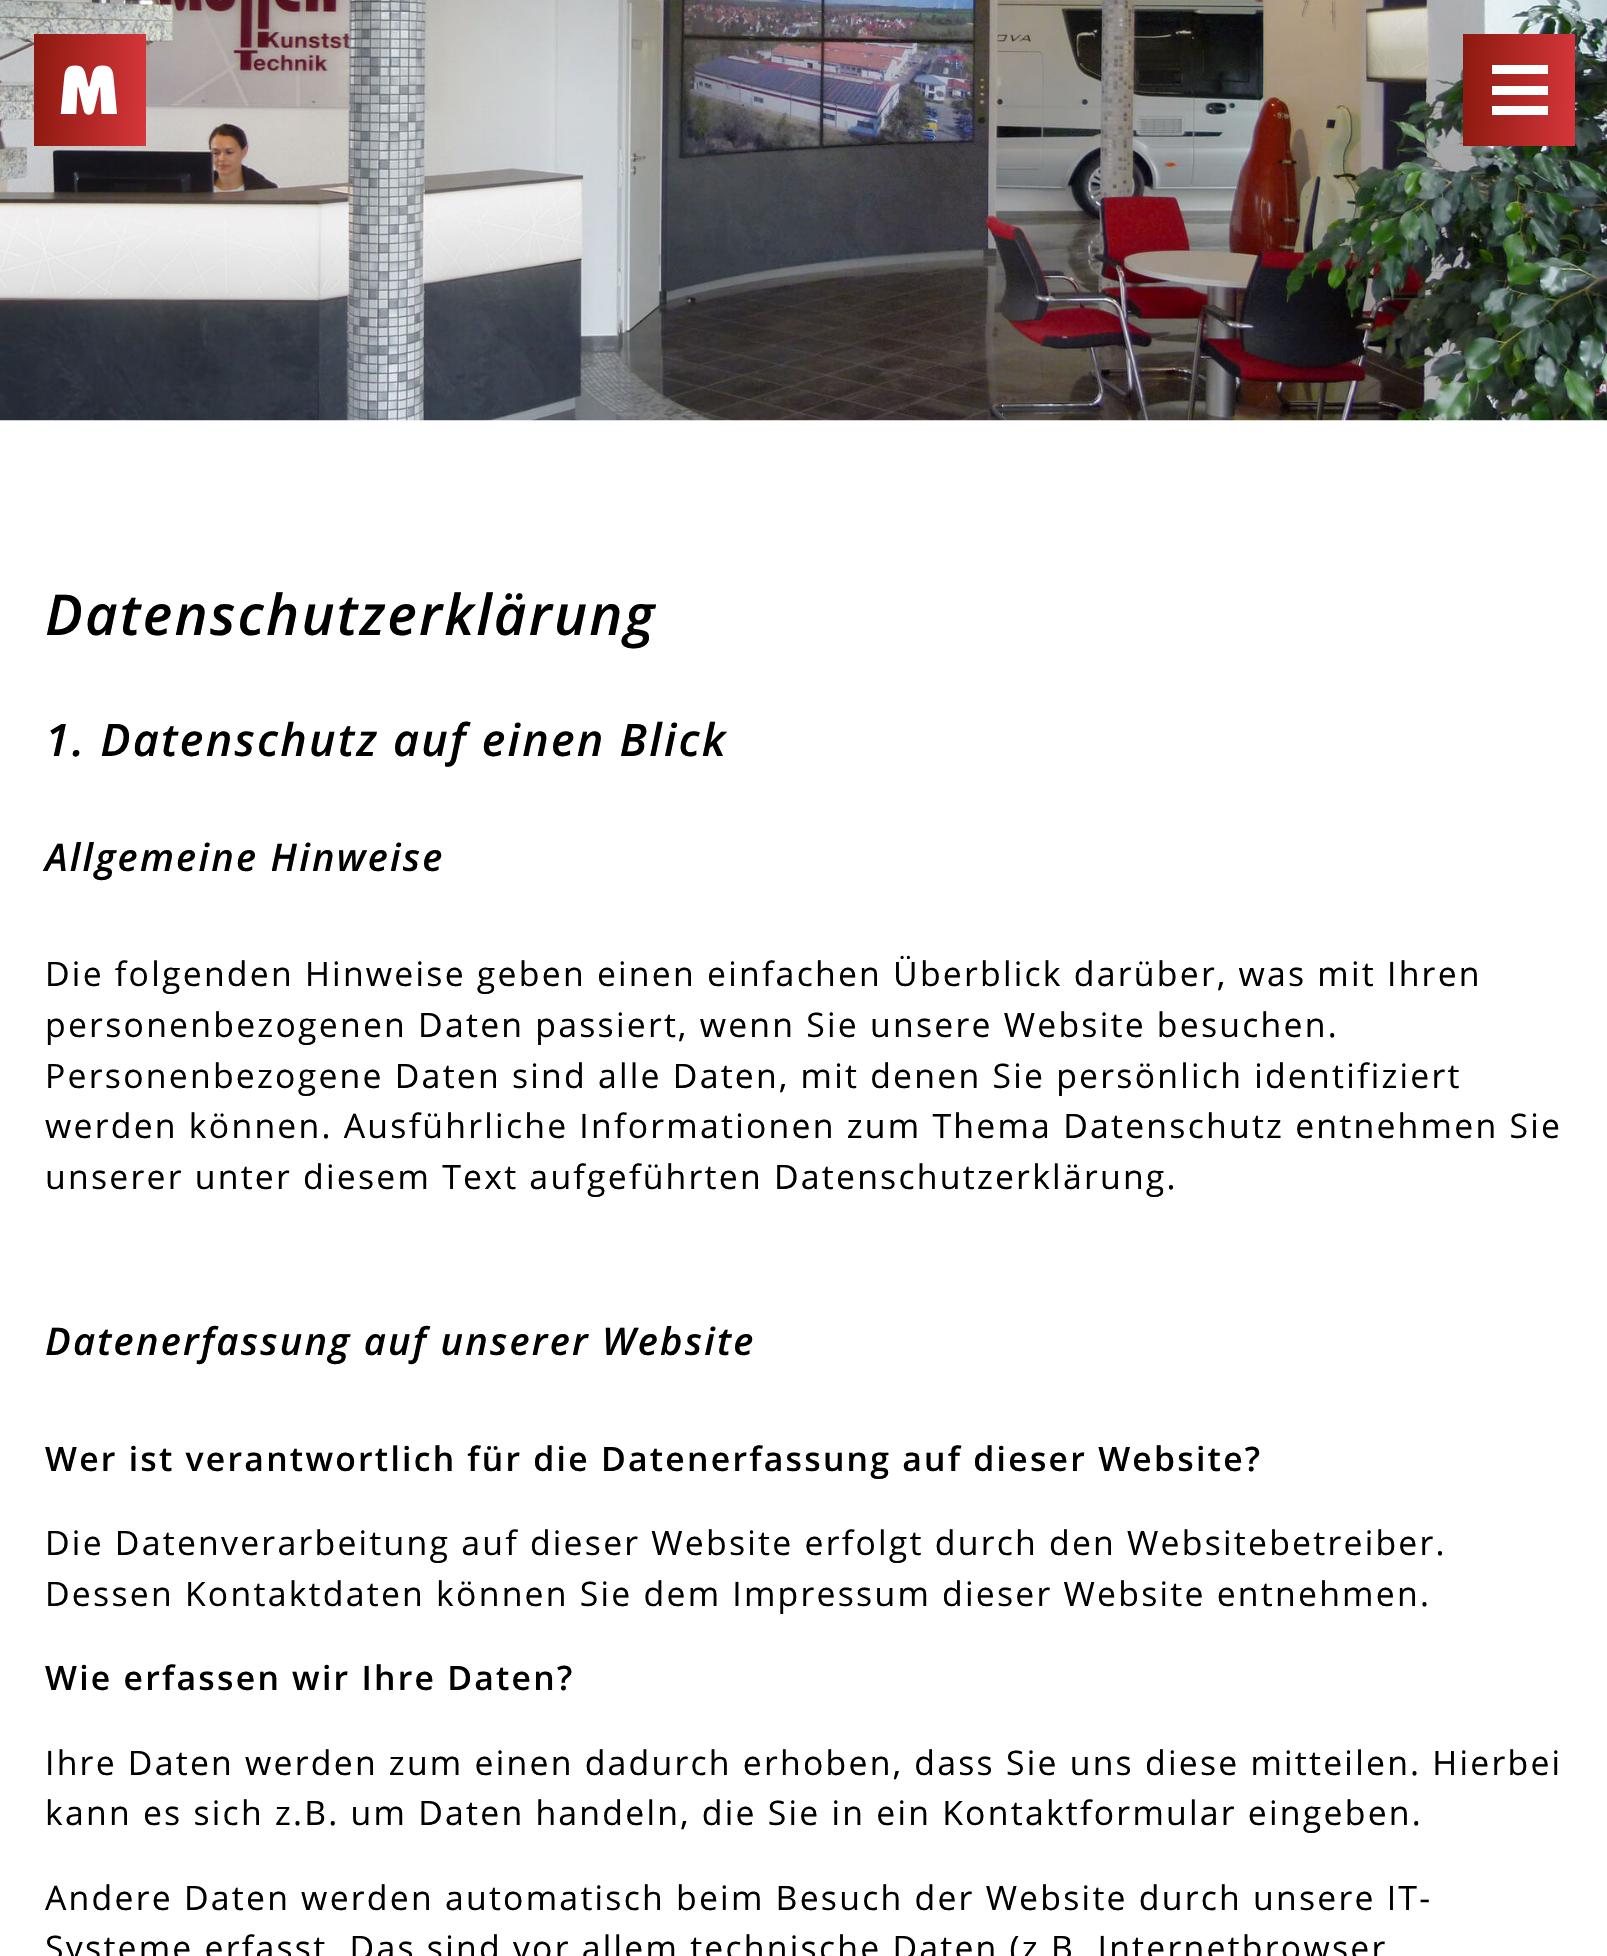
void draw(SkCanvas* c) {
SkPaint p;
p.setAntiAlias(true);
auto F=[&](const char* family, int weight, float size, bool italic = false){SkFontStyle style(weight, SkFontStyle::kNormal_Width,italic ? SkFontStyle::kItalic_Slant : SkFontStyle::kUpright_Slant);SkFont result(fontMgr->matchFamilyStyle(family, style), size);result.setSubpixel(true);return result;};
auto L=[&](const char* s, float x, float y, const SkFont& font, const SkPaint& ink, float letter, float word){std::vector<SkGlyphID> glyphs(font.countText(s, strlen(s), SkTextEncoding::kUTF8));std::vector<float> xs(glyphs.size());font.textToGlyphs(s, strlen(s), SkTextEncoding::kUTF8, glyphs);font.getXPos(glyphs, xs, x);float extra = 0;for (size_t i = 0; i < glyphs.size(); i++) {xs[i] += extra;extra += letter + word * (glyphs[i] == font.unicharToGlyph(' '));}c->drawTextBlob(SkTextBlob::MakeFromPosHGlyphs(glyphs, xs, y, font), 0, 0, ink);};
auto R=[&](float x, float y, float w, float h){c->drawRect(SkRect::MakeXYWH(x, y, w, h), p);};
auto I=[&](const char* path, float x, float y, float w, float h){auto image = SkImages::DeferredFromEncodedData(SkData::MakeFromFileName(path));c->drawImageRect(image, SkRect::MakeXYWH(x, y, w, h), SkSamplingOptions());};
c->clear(0xffffffff);
I("2.png",0,0,1607,421);
{
const SkColor colors[] = {0xff8c190f,0xffd6363b};
const float stops[] = {0,1};
const SkPoint ends[] = {{32,88}, {148,92}};
p.setShader(SkGradientShader::MakeLinear(ends, colors, stops, 2, SkTileMode::kClamp));
p.setAlpha(255);
}
R(34,34,112,112);
I("1.png",60,65,57,50);
{
const SkColor colors[] = {0xff8c190f,0xffd6363b};
const float stops[] = {0,1};
const SkPoint ends[] = {{1461,88}, {1577,92}};
p.setShader(SkGradientShader::MakeLinear(ends, colors, stops, 2, SkTileMode::kClamp));
p.setAlpha(255);
}
R(1463,34,112,112);
p.setShader(nullptr);
p.setColor(0xffffffff);
R(1492,65,56,9);
R(1492,86,56,9);
R(1492,106,56,9);
auto f1 = F("Open Sans",600,56.25,true);
p.setColor(0xff000000);
L("Datenschutzerklärung",45,635,f1,p,2.25,0);
auto f2 = F("Open Sans",600,45,true);
L("1. Datenschutz auf einen Blick",45,756,f2,p,2.25,0);
auto f3 = F("Open Sans",600,38.25,true);
L("Allgemeine Hinweise",45,871,f3,p,2.25,0);
auto f4 = F("Open Sans",400,33.75);
L("Die folgenden Hinweise geben einen einfachen Überblick darüber, was mit Ihren",45,986,f4,p,2.25,0);
L("personenbezogenen Daten passiert, wenn Sie unsere Website besuchen.",45,1037,f4,p,2.25,0);
L("Personenbezogene Daten sind alle Daten, mit denen Sie persönlich identifiziert",45,1088,f4,p,2.25,0);
L("werden können. Ausführliche Informationen zum Thema Datenschutz entnehmen Sie",45,1138,f4,p,2.25,0);
L("unserer unter diesem Text aufgeführten Datenschutzerklärung.",45,1189,f4,p,2.25,0);
L("Datenerfassung auf unserer Website",45,1355,f3,p,2.25,0);
auto f5 = F("Open Sans",600,33.75);
L("Wer ist verantwortlich für die Datenerfassung auf dieser Website?",45,1471,f5,p,2.25,0);
L("Die Datenverarbeitung auf dieser Website erfolgt durch den Websitebetreiber.",45,1555,f4,p,2.25,0);
L("Dessen Kontaktdaten können Sie dem Impressum dieser Website entnehmen.",45,1606,f4,p,2.25,0);
L("Wie erfassen wir Ihre Daten?",45,1690,f5,p,2.25,0);
L("Ihre Daten werden zum einen dadurch erhoben, dass Sie uns diese mitteilen. Hierbei",45,1775,f4,p,2.25,0);
L("kann es sich z.B. um Daten handeln, die Sie in ein Kontaktformular eingeben.",45,1825,f4,p,2.25,0);
L("Andere Daten werden automatisch beim Besuch der Website durch unsere IT-",45,1910,f4,p,2.25,0);
L("Systeme erfasst. Das sind vor allem technische Daten (z.B. Internetbrowser",45,1960,f4,p,2.25,0);
}
